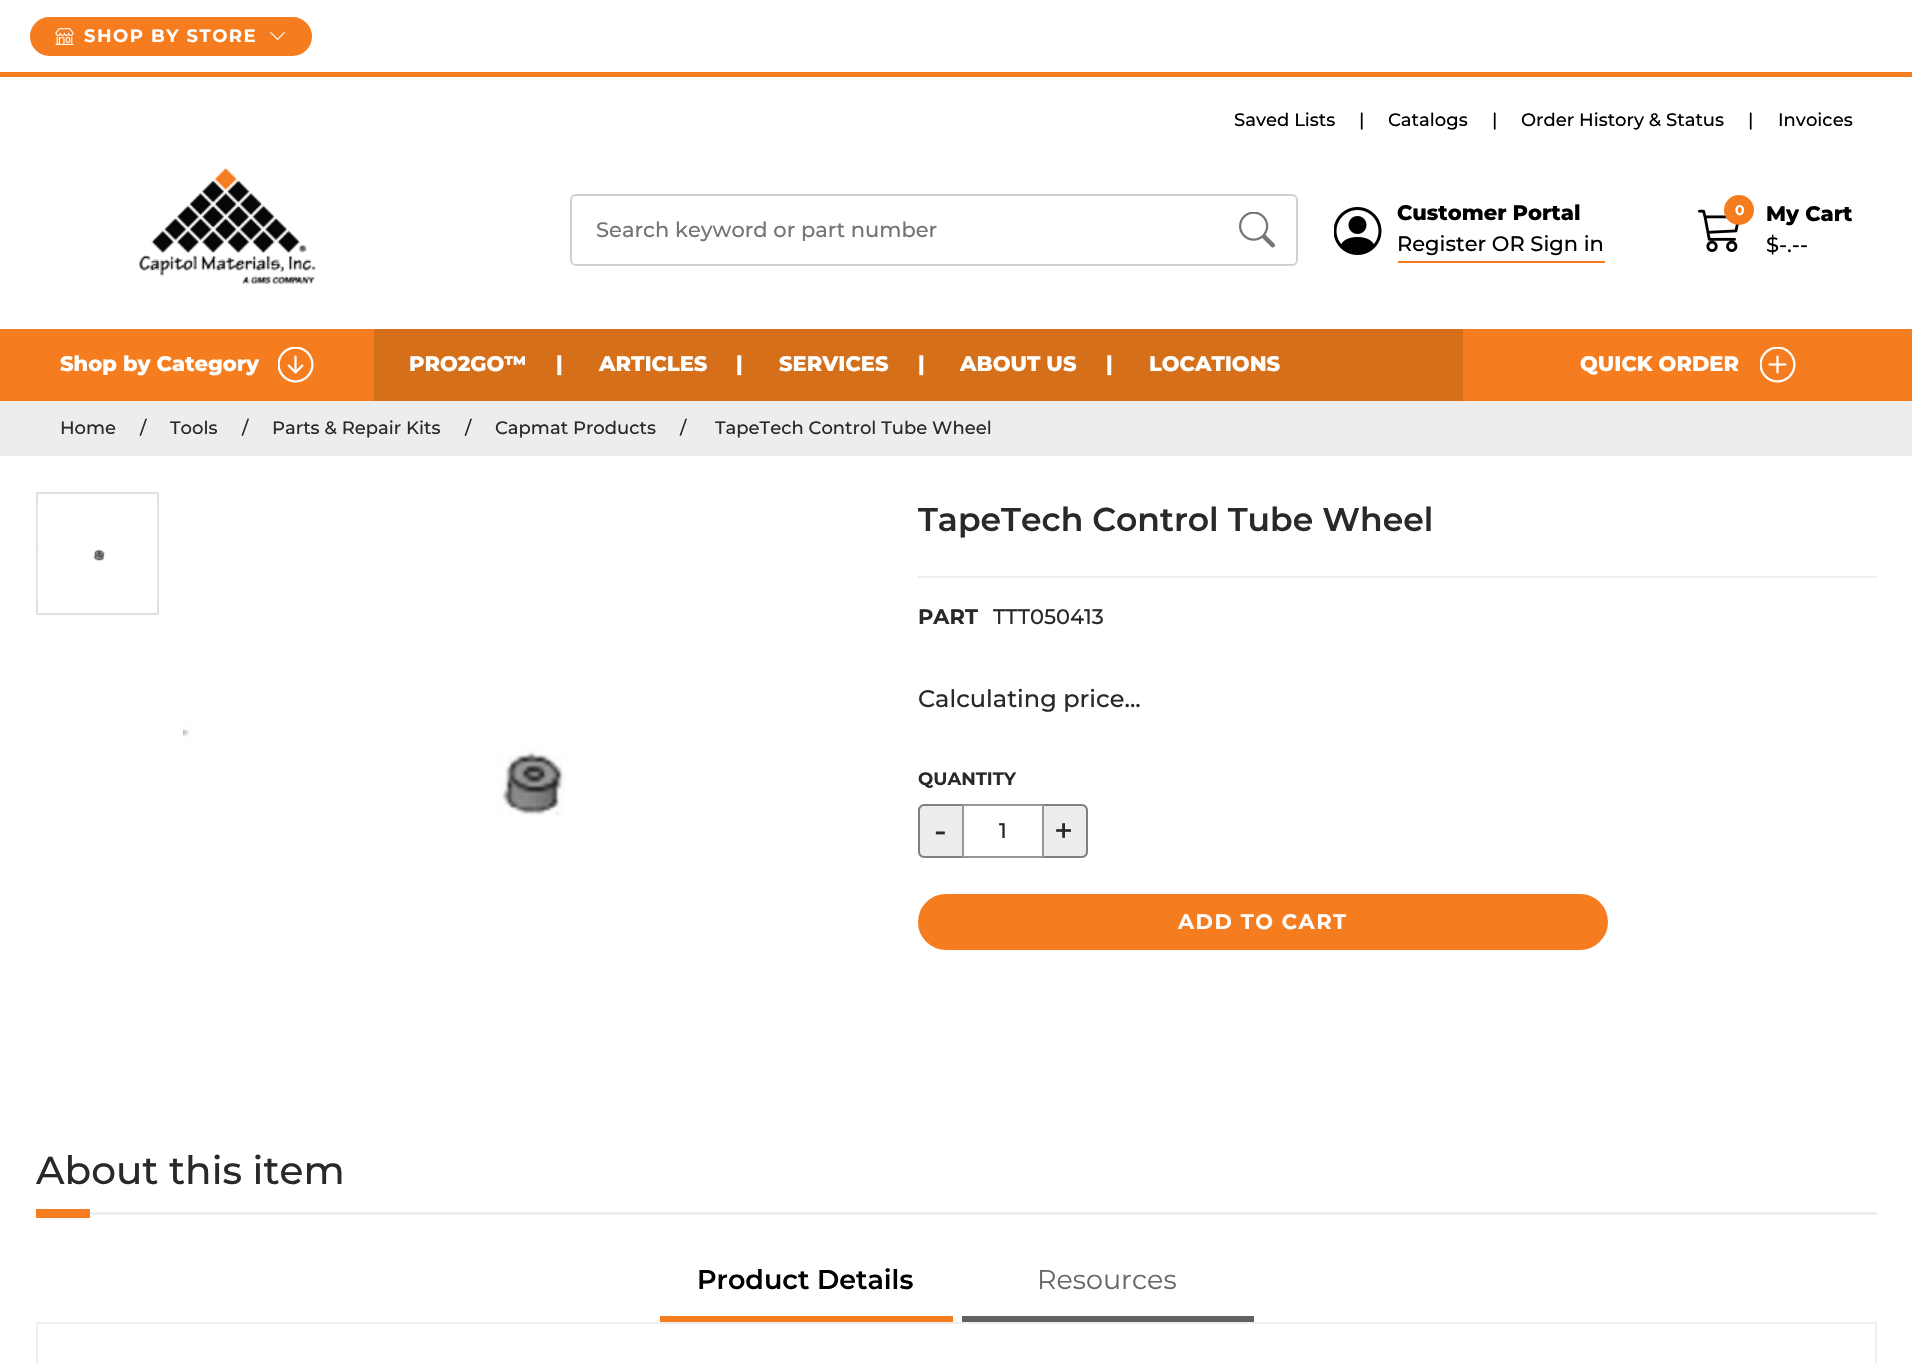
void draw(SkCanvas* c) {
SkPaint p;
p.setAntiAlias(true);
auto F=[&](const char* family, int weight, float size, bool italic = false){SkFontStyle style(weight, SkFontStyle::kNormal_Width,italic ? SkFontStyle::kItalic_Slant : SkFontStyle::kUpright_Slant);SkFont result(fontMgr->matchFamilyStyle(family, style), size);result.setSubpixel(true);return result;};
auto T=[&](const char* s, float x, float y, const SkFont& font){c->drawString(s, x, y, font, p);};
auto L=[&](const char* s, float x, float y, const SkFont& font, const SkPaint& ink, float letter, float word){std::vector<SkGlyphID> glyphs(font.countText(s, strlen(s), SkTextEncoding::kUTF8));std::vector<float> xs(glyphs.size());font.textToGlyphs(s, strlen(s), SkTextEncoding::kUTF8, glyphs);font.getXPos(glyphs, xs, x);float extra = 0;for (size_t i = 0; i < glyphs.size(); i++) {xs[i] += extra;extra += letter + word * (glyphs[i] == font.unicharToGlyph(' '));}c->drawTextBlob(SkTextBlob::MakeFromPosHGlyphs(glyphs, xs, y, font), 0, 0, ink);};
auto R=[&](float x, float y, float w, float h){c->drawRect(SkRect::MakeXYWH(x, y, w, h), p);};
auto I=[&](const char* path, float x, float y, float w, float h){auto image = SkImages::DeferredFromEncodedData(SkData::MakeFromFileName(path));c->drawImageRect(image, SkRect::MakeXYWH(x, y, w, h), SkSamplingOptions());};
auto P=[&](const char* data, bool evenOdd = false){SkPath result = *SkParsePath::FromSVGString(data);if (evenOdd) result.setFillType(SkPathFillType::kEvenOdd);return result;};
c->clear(0xffffffff);
p.setColor(0xfff57d20);
c->drawRoundRect(SkRect::MakeXYWH(31,18,280,37),18.5,18.5,p);
p.setStroke(true);
p.setStrokeWidth(2);
c->drawRoundRect(SkRect::MakeXYWH(31,18,280,37),18.5,18.5,p);
I("1.png",55,28,19,17);
auto f1 = F("Montserrat",700,18);
p.setStroke(false);
p.setColor(0xffffffff);
L("SHOP BY STORE",84,42,f1,p,1.5,0);
I("2.png",270,32,15,8);
p.setColor(0xfff57d20);
R(0,72,1912,5);
auto f2 = F("Montserrat",500,18);
p.setColor(0xff000000);
T("Saved Lists",1234,126,f2);
T("|",1359,126,f2);
T("Catalogs",1388,126,f2);
T("|",1492,126,f2);
T("Order History & Status",1521,126,f2);
T("|",1748,126,f2);
T("Invoices",1778,126,f2);
I("3.png",139,167,177,117);
p.setStroke(true);
p.setColor(0xffd1d1d1);
c->drawRoundRect(SkRect::MakeXYWH(571,195,726,70),5,5,p);
auto f3 = F("Montserrat",500,21);
p.setStroke(false);
p.setColor(0xff757575);
T("Search keyword or part number",596,237,f3);
I("4.png",1239,212,36,36);
I("5.png",1334,207,48,48);
auto f4 = F("Montserrat",800,21);
p.setColor(0xff000000);
T("Customer Portal",1397,220,f4);
p.setColor(0xfff57d20);
R(1398,261,207,2);
p.setColor(0xff000000);
T("Register OR Sign in",1397,251,f3);
I("6.png",1698,209,41,43);
p.setColor(0xfff57d20);
c->drawCircle(1739,210,15,p);
auto f5 = F("Montserrat",700,14);
p.setColor(0xffffffff);
T("0",1735,215,f5);
p.setColor(0xff000000);
T("My Cart",1766,221,f4);
T("$-.--",1766,252,f3);
p.setColor(0xffd56f1a);
R(374,329,1089,72);
p.setColor(0xfff57d20);
R(0,329,374,72);
p.setColor(0xffffffff);
T("Shop by Category",60,371,f4);
I("7.png",278,347,36,36);
T("PRO2GO™",409,371,f4);
T("|",556,371,f4);
T("ARTICLES",599,371,f4);
T("|",736,371,f4);
T("SERVICES",779,371,f4);
T("|",918,371,f4);
T("ABOUT US",960,371,f4);
T("|",1106,371,f4);
T("LOCATIONS",1149,371,f4);
p.setColor(0xfff57d20);
R(1463,329,449,72);
p.setColor(0xffffffff);
T("QUICK ORDER",1580,371,f4);
I("8.png",1760,347,36,36);
p.setColor(0xffededed);
R(0,401,1912,55);
p.setColor(0xff292929);
T("Home",60,434,f2);
T("/",140,434,f2);
T("Tools",170,434,f2);
T("/",242,434,f2);
T("Parts & Repair Kits",272,434,f2);
T("/",465,434,f2);
T("Capmat Products",495,434,f2);
T("/",680,434,f2);
T("TapeTech Control Tube Wheel",715,434,f2);
p.setStroke(true);
p.setColor(0xffe0e0e0);
c->drawRect(SkRect::MakeXYWH(37,493,121,121),p);
I("9.png",37,504,121,99);
I("10.png",183,722,382,95);
auto f6 = F("Montserrat",600,33);
p.setStroke(false);
p.setColor(0xff292929);
T("TapeTech Control Tube Wheel",918,531,f6);
p.setColor(0xffeeeeee);
R(918,576,959,2);
auto f7 = F("Montserrat",700,21);
p.setColor(0xff292929);
T("PART",918,624,f7);
T("TTT050413",993,624,f3);
auto f8 = F("Montserrat",500,24);
T("Calculating price...",918,707,f8);
T("QUANTITY",918,785,f1);
p.setColor(0xffededed);
c->drawPath(P("M924 804h39v54h-39c-3.5 0-6-2.5-6-6v-42c0-3.5 2.5-6 6-6z"),p);
p.setColor(0xff808080);
c->drawPath(P("M924 804h39v54h-39c-3 0-6-3-6-6v-42c0-3 3-6 6-6zm0 2h39v50h-39c-2 0-4-2-4-4v-42c0-2 2-4 4-4z",true),p);
auto f9 = F("Montserrat",500,33);
p.setColor(0xff292929);
L("-",934,842,f9,p,1.5,0);
p.setColor(0xffededed);
c->drawPath(P("M1043 804h39c3.5 0 6 2.5 6 6v42c0 3.5-2.5 6-6 6h-39z"),p);
p.setColor(0xff808080);
c->drawPath(P("M1042 804h40c3 0 6 3 6 6v42c0 3-3 6-6 6h-40zm0 2h40c2 0 4 2 4 4v42c0 2-2 4-4 4h-40z",true),p);
p.setStroke(true);
p.setColor(0xff979797);
c->drawRect(SkRect::MakeXYWH(963,805,80,52),p);
p.setStroke(false);
p.setColor(0xff212529);
T("1",999,838,f3);
p.setColor(0xff292929);
L("+",1054,842,f9,p,1.5,0);
p.setColor(0xfff57d20);
c->drawRoundRect(SkRect::MakeXYWH(919,895,688,54),27,27,p);
p.setStroke(true);
c->drawRoundRect(SkRect::MakeXYWH(919,895,688,54),27,27,p);
p.setStroke(false);
p.setColor(0xffffffff);
L("ADD TO CART",1178,929,f7,p,1.5,0);
p.setColor(0xffededed);
R(90,1212,1787,3);
auto f10 = F("Montserrat",500,39);
p.setColor(0xff292929);
T("About this item",36,1184,f10);
p.setColor(0xfff57d20);
R(36,1209,54,9);
R(660,1316,293,6);
auto f11 = F("Montserrat",600,27);
p.setColor(0xff000000);
T("Product Details",697,1289,f11);
p.setColor(0xff616161);
R(962,1316,292,6);
auto f12 = F("Montserrat",400,27);
p.setColor(0xff686868);
T("Resources",1037,1289,f12);
p.setStroke(true);
p.setColor(0xffeeeeee);
c->drawRect(SkRect::MakeXYWH(37,1323,1839,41),p);
}
